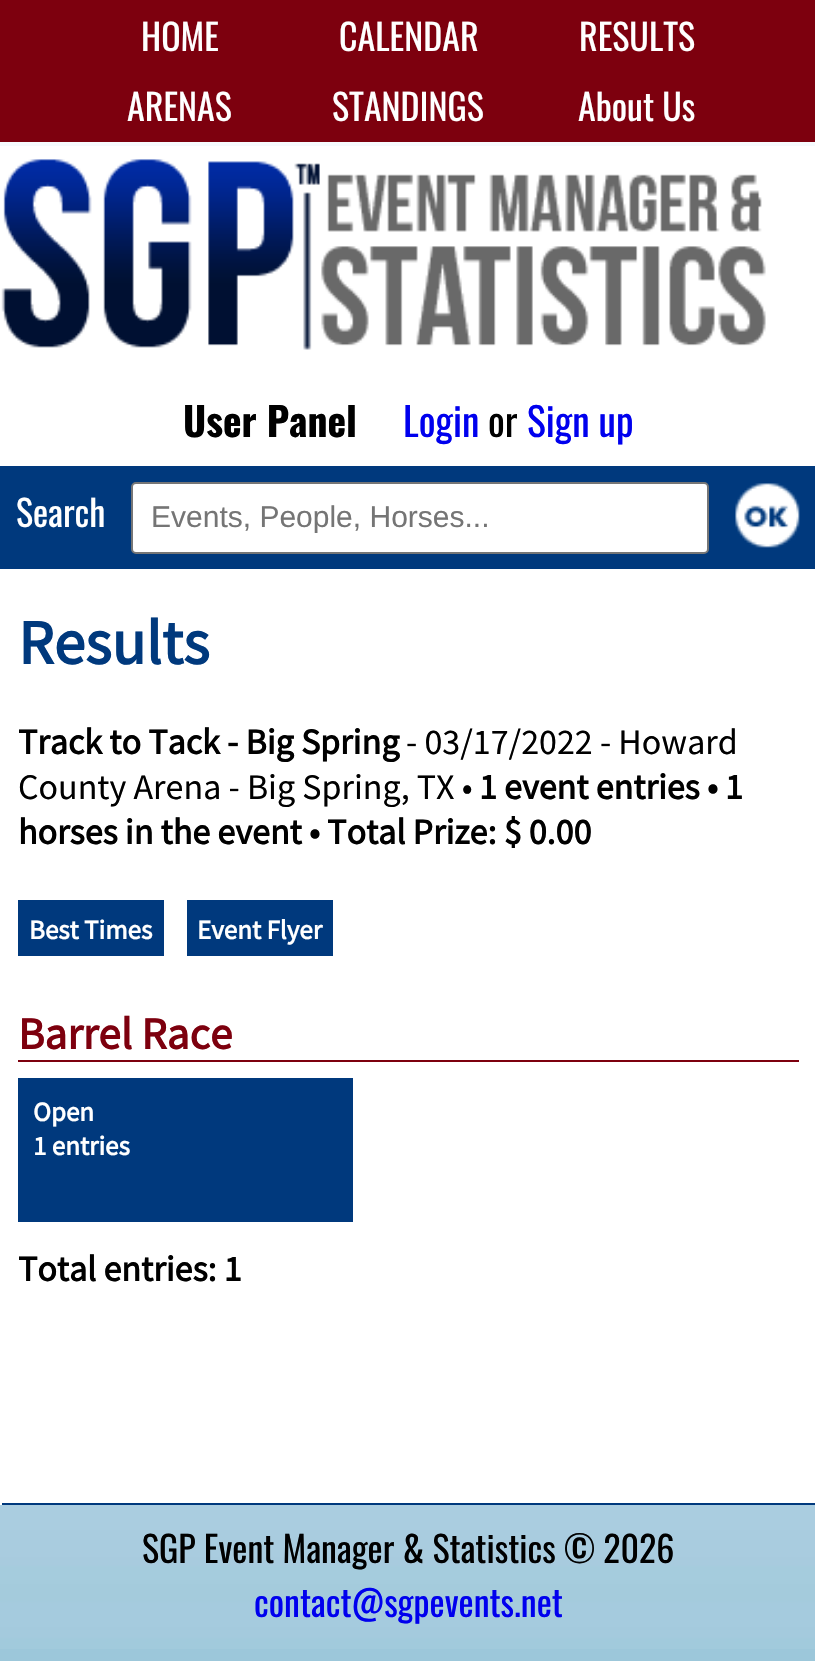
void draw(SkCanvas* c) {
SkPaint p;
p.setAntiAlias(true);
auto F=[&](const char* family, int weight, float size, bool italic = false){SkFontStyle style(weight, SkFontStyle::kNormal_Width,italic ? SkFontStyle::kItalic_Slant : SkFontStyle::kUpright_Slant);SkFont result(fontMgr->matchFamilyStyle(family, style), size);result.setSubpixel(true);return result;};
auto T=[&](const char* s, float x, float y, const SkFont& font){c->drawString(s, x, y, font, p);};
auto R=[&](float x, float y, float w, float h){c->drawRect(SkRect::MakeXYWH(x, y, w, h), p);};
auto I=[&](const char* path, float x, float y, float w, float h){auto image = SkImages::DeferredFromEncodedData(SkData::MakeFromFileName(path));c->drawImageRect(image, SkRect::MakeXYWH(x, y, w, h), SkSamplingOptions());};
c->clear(0xff9cc7da);
I("1.png",0,142,815,1507);
p.setColor(0xff7d000e);
R(0,0,815,142);
auto f1 = F("Oswald",400,36);
p.setColor(0xffffffff);
T("HOME",141,51,f1);
T("CALENDAR",339,51,f1);
T("RESULTS",579,51,f1);
T("ARENAS",127,121,f1);
T("STANDINGS",332,121,f1);
T("About Us",578,121,f1);
R(0,146,815,1359);
I("2.png",1,159,765,191);
auto f2 = F("Oswald",700,39.5);
p.setColor(0xff000000);
T("User Panel",183,437,f2);
auto f3 = F("Oswald",400,39.5);
p.setColor(0xff0000ee);
T("Login",403,437,f3);
p.setColor(0xff000000);
T("or",488,437,f3);
p.setColor(0xff0000ee);
T("Sign up",527,437,f3);
p.setColor(0xff00397d);
R(0,466,815,103);
p.setColor(0xffffffff);
T("Search",16,527,f1);
c->drawRoundRect(SkRect::MakeXYWH(132,483,576,70),4,4,p);
p.setStroke(true);
p.setStrokeWidth(2);
p.setColor(0xff767676);
c->drawRoundRect(SkRect::MakeXYWH(132,483,576,70),4,4,p);
c->save();
c->clipRect(SkRect::MakeXYWH(151,500,549,33));
auto f4 = F("Liberation Sans",400,30);
p.setStroke(false);
p.setColor(0xff757575);
T("Events, People, Horses...",151,527,f4);
c->restore();
I("3.png",735,483,65,65);
p.setColor(0xff00397d);
R(2,1503,813,2);
auto f5 = F("Source Sans Pro",700,63);
T("Results",18,664,f5);
auto f6 = F("Source Sans Pro",700,36);
p.setColor(0xff000000);
T("Track to Tack - Big Spring",18,754,f6);
auto f7 = F("Source Sans Pro",400,36);
T("- 03/17/2022 - Howard",406,754,f7);
T("County Arena - Big Spring, TX •",18,799,f7);
T("1 event entries • 1",479,799,f6);
T("horses in the event • Total Prize: $ 0.00",18,844,f6);
p.setColor(0xff00397d);
R(18,900,146,56);
auto f8 = F("Source Sans Pro",700,27);
p.setColor(0xffffffff);
T("Best Times",29,939,f8);
p.setColor(0xff00397d);
R(187,900,146,56);
p.setColor(0xffffffff);
T("Event Flyer",197,939,f8);
p.setColor(0xff7d000e);
R(18,1060,781,2);
auto f9 = F("Source Sans Pro",700,45);
T("Barrel Race",18,1049,f9);
p.setColor(0xff00397d);
R(18,1078,335,144);
p.setColor(0xffffffff);
T("Open",33,1121,f8);
T("1 entries",33,1155,f8);
p.setColor(0xff000000);
T("Total entries: 1",18,1281,f6);
T("SGP Event Manager & Statistics © 2026",142,1563,f1);
p.setColor(0xff0000ee);
T("contact@sgpevents.net",254,1617,f1);
}
